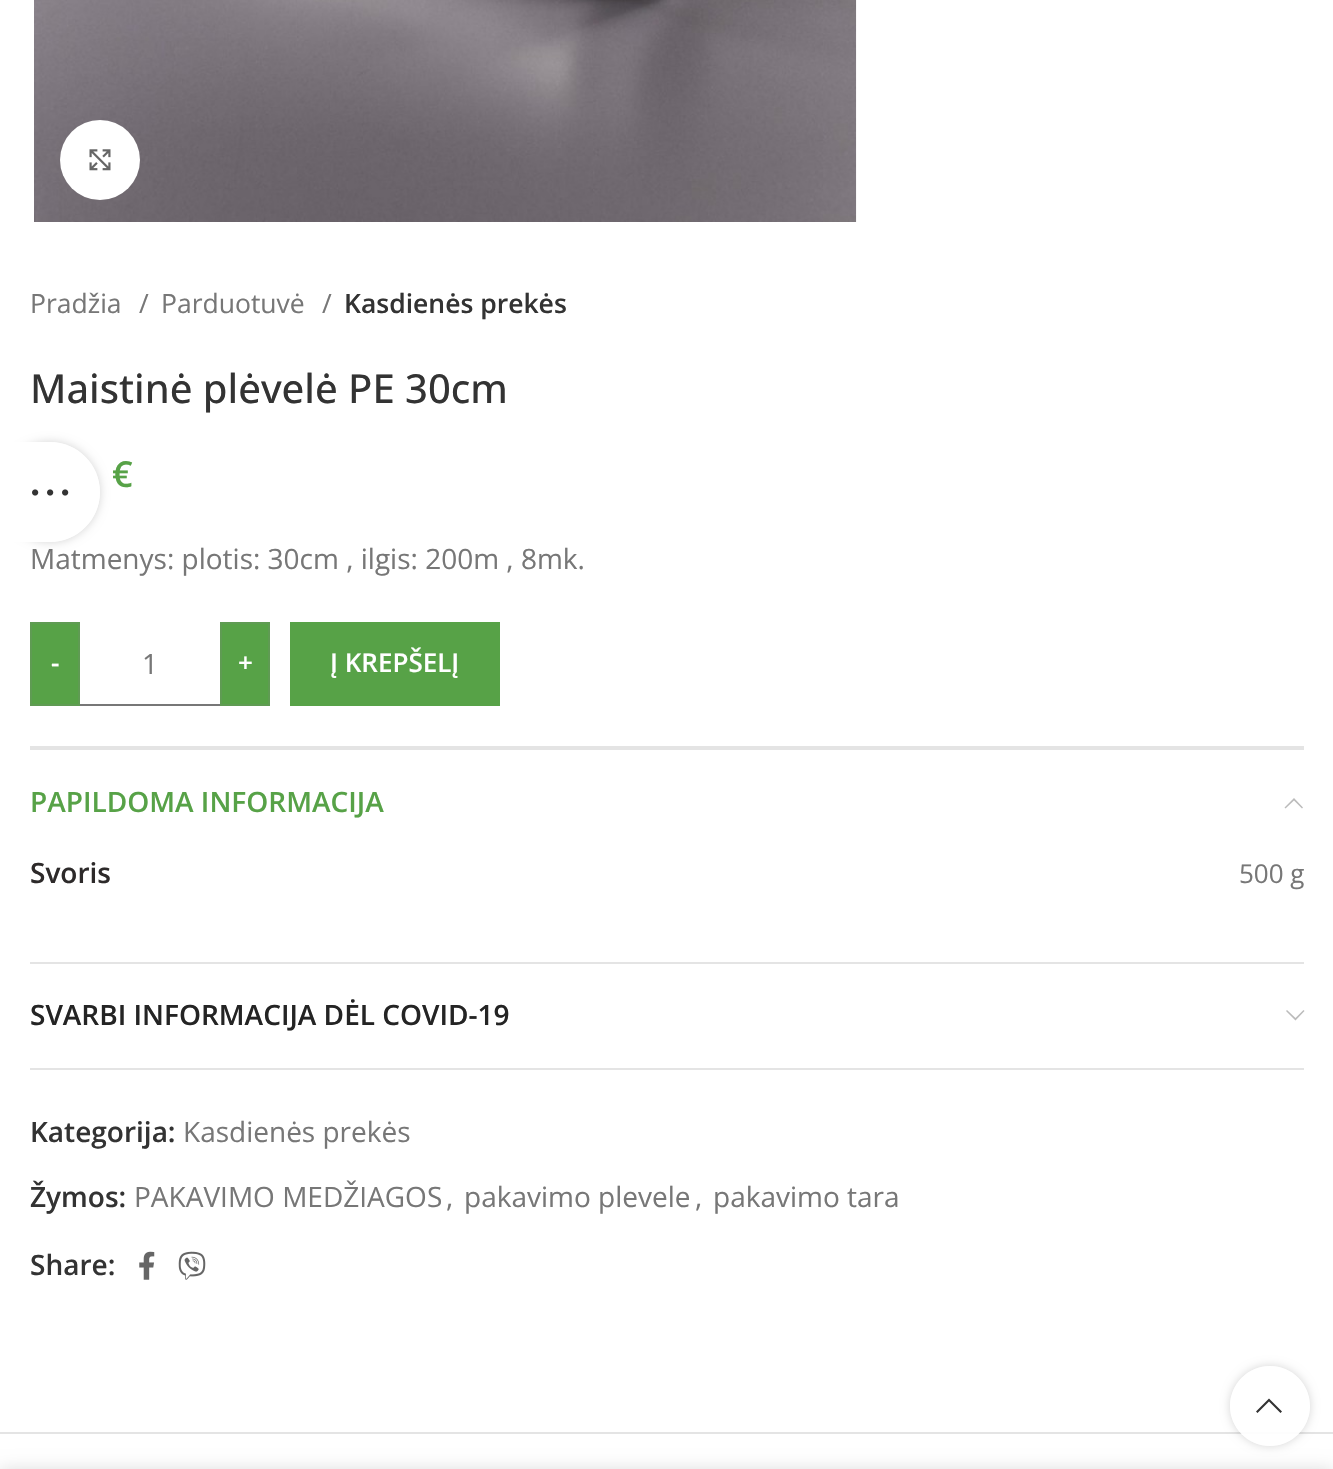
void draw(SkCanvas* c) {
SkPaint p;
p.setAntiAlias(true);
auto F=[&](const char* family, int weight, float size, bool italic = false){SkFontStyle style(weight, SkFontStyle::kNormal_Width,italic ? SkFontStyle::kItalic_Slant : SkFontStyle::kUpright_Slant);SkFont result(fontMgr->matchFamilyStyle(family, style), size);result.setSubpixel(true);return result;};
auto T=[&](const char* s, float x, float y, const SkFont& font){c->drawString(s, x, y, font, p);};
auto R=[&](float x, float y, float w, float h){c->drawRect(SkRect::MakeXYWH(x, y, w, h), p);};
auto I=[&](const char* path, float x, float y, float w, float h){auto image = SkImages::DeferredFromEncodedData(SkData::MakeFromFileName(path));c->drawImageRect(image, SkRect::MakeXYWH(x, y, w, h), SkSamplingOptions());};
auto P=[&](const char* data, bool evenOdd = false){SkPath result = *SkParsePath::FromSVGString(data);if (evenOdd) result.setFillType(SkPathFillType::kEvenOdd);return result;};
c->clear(0xffffffff);
I("1.png",34,0,823,222);
p.setColor(0xffffffff);
c->drawCircle(100,160,40,p);
I("2.png",89,149,22,22);
auto f1 = F("Open Sans",400,26.5);
p.setColor(0xff777777);
T("Pradžia",30,313,f1);
T("/",139,313,f1);
T("Parduotuvė",161,313,f1);
T("/",322,313,f1);
auto f2 = F("Open Sans",600,26.5);
p.setColor(0xff333333);
T("Kasdienės prekės",344,313,f2);
auto f3 = F("Open Sans",500,40);
T("Maistinė plėvelė PE 30cm",30,403,f3);
auto f4 = F("Open Sans",600,36);
p.setColor(0xff57a247);
T("€",112,487,f4);
auto f5 = F("Open Sans",400,28);
p.setColor(0xff777777);
T("Matmenys: plotis: 30cm , ilgis: 200m , 8mk.",30,569,f5);
p.setColor(0xff57a247);
c->drawRect(SkRect::MakeXYWH(31,623,48,82),p);
p.setStroke(true);
p.setStrokeWidth(2);
p.setColor(0xff5f9b53);
c->drawRect(SkRect::MakeXYWH(31,623,48,82),p);
auto f6 = F("Open Sans",600,26);
p.setStroke(false);
p.setColor(0xffffffff);
T("-",51,672,f6);
p.setColor(0xff777777);
R(80,704,140,2);
T("1",142,674,f5);
p.setColor(0xff57a247);
c->drawRect(SkRect::MakeXYWH(221,623,48,82),p);
p.setStroke(true);
p.setColor(0xff5f9b53);
c->drawRect(SkRect::MakeXYWH(221,623,48,82),p);
p.setStroke(false);
p.setColor(0xffffffff);
T("+",238,672,f6);
p.setColor(0xff57a247);
R(290,622,210,84);
p.setColor(0xffffffff);
T("Į KREPŠELĮ",330,672,f6);
p.setColor(0xffe4e4e4);
R(30,746,1274,4);
R(30,962,1274,2);
auto f7 = F("Open Sans",600,28);
p.setColor(0xff57a247);
T("PAPILDOMA INFORMACIJA",30,812,f7);
p.setColor(0xffbbbbbb);
c->drawPath(P("M1285.5 808.5l8.5-8l8 8l1-1l-9-9.5l-9.5 9.5z"),p);
p.setColor(0xff2d2a2a);
T("Svoris",30,883,f7);
auto f8 = F("Open Sans",400,26);
p.setColor(0xff777777);
T("500 g",1239,883,f8);
p.setColor(0xffe4e4e4);
R(30,1068,1274,2);
p.setColor(0xff242424);
T("SVARBI INFORMACIJA DĖL COVID-19",30,1025,f7);
p.setColor(0xffbbbbbb);
c->drawPath(P("M1303.5 1010l-8 8l-8.5-8l-1 1l9.5 9.5l9-9.5z"),p);
p.setColor(0xff333333);
T("Kategorija:",30,1142,f7);
p.setColor(0xff777777);
T("Kasdienės prekės",183,1142,f5);
p.setColor(0xff333333);
T("Žymos:",30,1207,f7);
p.setColor(0xff777777);
T("PAKAVIMO MEDŽIAGOS",134,1207,f5);
T(",",446,1207,f5);
T("pakavimo plevele",464,1207,f5);
T(",",695,1207,f5);
T("pakavimo tara",713,1207,f5);
p.setColor(0xff333333);
T("Share:",30,1275,f7);
I("3.png",139,1251,16,29);
I("4.png",178,1251,28,29);
p.setColor(0xffe4e4e4);
R(0,1432,1333,2);
c->save();
c->clipPath(P("M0 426h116v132h-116zm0 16h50c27.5 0 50 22.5 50 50c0 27.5-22.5 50-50 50h-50z",true),true);
p.setColor(0x2b000000);
p.setMaskFilter(SkMaskFilter::MakeBlur(kNormal_SkBlurStyle, 5));
c->drawRoundRect(SkRect::MakeXYWH(0,442,100,100),50,50,p);
p.setMaskFilter(nullptr);
c->restore();
p.setColor(0xe6ffffff);
c->drawPath(P("M0 442h50c27.5 0 50 22.5 50 50c0 27.5-22.5 50-50 50h-50z"),p);
I("5.png",32,489,37,7);
c->save();
c->clipPath(P("M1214 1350h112v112h-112zm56 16c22 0 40 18 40 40c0 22-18 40-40 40c-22 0-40-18-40-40c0-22 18-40 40-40z",true),true);
p.setColor(0x2b000000);
p.setMaskFilter(SkMaskFilter::MakeBlur(kNormal_SkBlurStyle, 5));
c->drawRoundRect(SkRect::MakeXYWH(1230,1366,80,80),40,40,p);
p.setMaskFilter(nullptr);
c->restore();
p.setColor(0xe6ffffff);
c->drawCircle(1270,1406,40,p);
p.setColor(0xff333333);
c->drawPath(P("M1280.5 1413l1.5-1.5l-13-13l-13 13l1.5 1.5l11.5-11.5z"),p);
p.setColor(0x24000000);
p.setMaskFilter(SkMaskFilter::MakeBlur(kNormal_SkBlurStyle, 9));
c->drawRect(SkRect::MakeXYWH(0,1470,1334,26),p);
p.setMaskFilter(nullptr);
}
